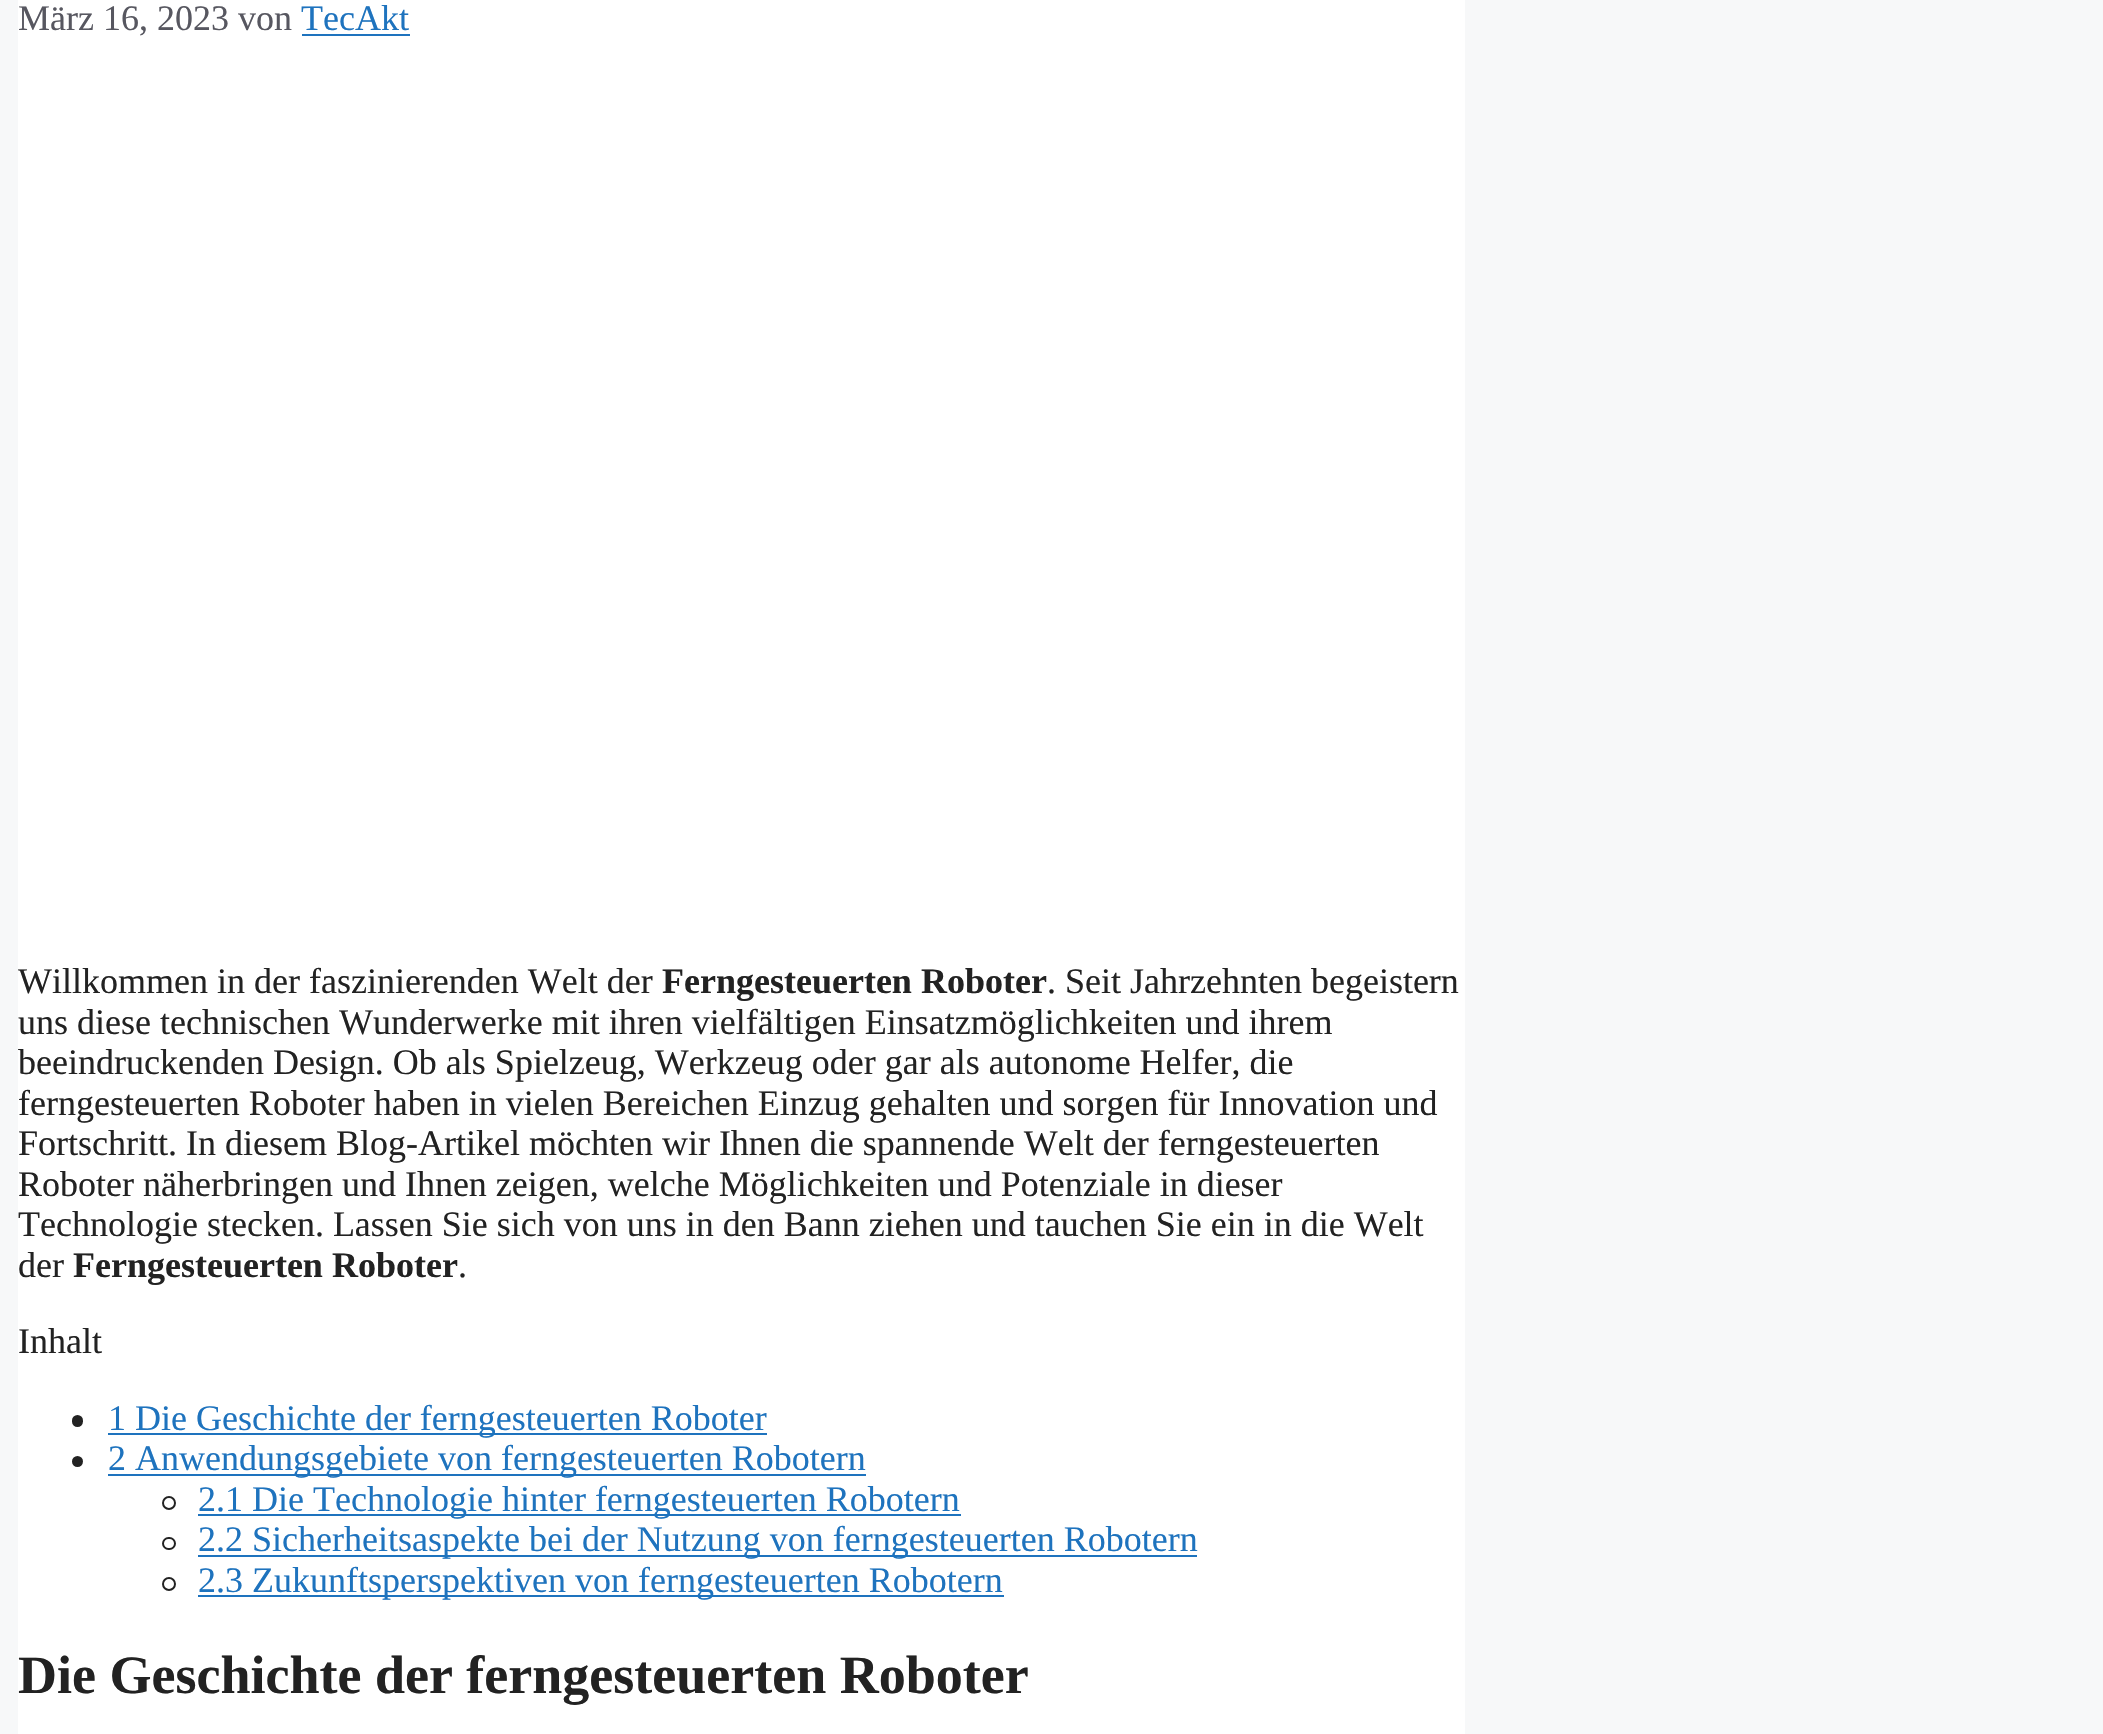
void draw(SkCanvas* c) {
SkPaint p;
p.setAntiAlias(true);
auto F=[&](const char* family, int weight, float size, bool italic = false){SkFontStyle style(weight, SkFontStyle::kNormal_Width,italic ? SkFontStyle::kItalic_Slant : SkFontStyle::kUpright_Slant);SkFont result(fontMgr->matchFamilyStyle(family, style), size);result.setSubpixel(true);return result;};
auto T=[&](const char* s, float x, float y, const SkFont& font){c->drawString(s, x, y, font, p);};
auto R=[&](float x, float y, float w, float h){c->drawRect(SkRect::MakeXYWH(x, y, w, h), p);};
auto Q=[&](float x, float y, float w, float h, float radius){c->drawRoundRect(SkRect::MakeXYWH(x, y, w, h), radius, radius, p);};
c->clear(0xfff7f8f9);
p.setColor(0xffffffff);
R(18,0,1447,1734);
auto f1 = F("Liberation Serif",400,36);
p.setColor(0xff575760);
T("März 16, 2023 von",18,30,f1);
p.setColor(0xff1e73be);
T("TecAkt",301,30,f1);
R(302,34,108,2);
p.setColor(0xff222222);
T("Willkommen in der faszinierenden Welt der",18,993,f1);
auto f2 = F("Liberation Serif",700,36);
T("Ferngesteuerten Roboter",662,993,f2);
T(". Seit Jahrzehnten begeistern",1047,993,f1);
T("uns diese technischen Wunderwerke mit ihren vielfältigen Einsatzmöglichkeiten und ihrem",18,1034,f1);
T("beeindruckenden Design. Ob als Spielzeug, Werkzeug oder gar als autonome Helfer, die",18,1074,f1);
T("ferngesteuerten Roboter haben in vielen Bereichen Einzug gehalten und sorgen für Innovation und",18,1115,f1);
T("Fortschritt. In diesem Blog-Artikel möchten wir Ihnen die spannende Welt der ferngesteuerten",18,1155,f1);
T("Roboter näherbringen und Ihnen zeigen, welche Möglichkeiten und Potenziale in dieser",18,1196,f1);
T("Technologie stecken. Lassen Sie sich von uns in den Bann ziehen und tauchen Sie ein in die Welt",18,1236,f1);
T("der",18,1277,f1);
T("Ferngesteuerten Roboter",73,1277,f2);
T(".",458,1277,f1);
T("Inhalt",18,1353,f1);
Q(72,1415,11,12,5.5);
p.setColor(0xff1e73be);
R(108,1433,659,2);
T("1 Die Geschichte der ferngesteuerten Roboter",108,1430,f1);
p.setColor(0xff222222);
c->drawCircle(77.5,1461.5,5.5,p);
p.setColor(0xff1e73be);
R(108,1474,758,2);
T("2 Anwendungsgebiete von ferngesteuerten Robotern",108,1470,f1);
p.setStroke(true);
p.setStrokeWidth(2);
p.setColor(0xff222222);
c->drawCircle(169,1503,6,p);
p.setStroke(false);
p.setColor(0xff1e73be);
R(198,1514,763,2);
T("2.1 Die Technologie hinter ferngesteuerten Robotern",198,1511,f1);
p.setStroke(true);
p.setColor(0xff222222);
c->drawRoundRect(SkRect::MakeXYWH(163,1538,12,11),5.5,5.5,p);
p.setStroke(false);
p.setColor(0xff1e73be);
R(198,1555,999,2);
T("2.2 Sicherheitsaspekte bei der Nutzung von ferngesteuerten Robotern",198,1551,f1);
p.setStroke(true);
p.setColor(0xff222222);
c->drawCircle(169,1584,6,p);
p.setStroke(false);
p.setColor(0xff1e73be);
R(198,1595,806,2);
T("2.3 Zukunftsperspektiven von ferngesteuerten Robotern",198,1592,f1);
auto f3 = F("Liberation Serif",700,54);
p.setColor(0xff222222);
T("Die Geschichte der ferngesteuerten Roboter",18,1693,f3);
}
